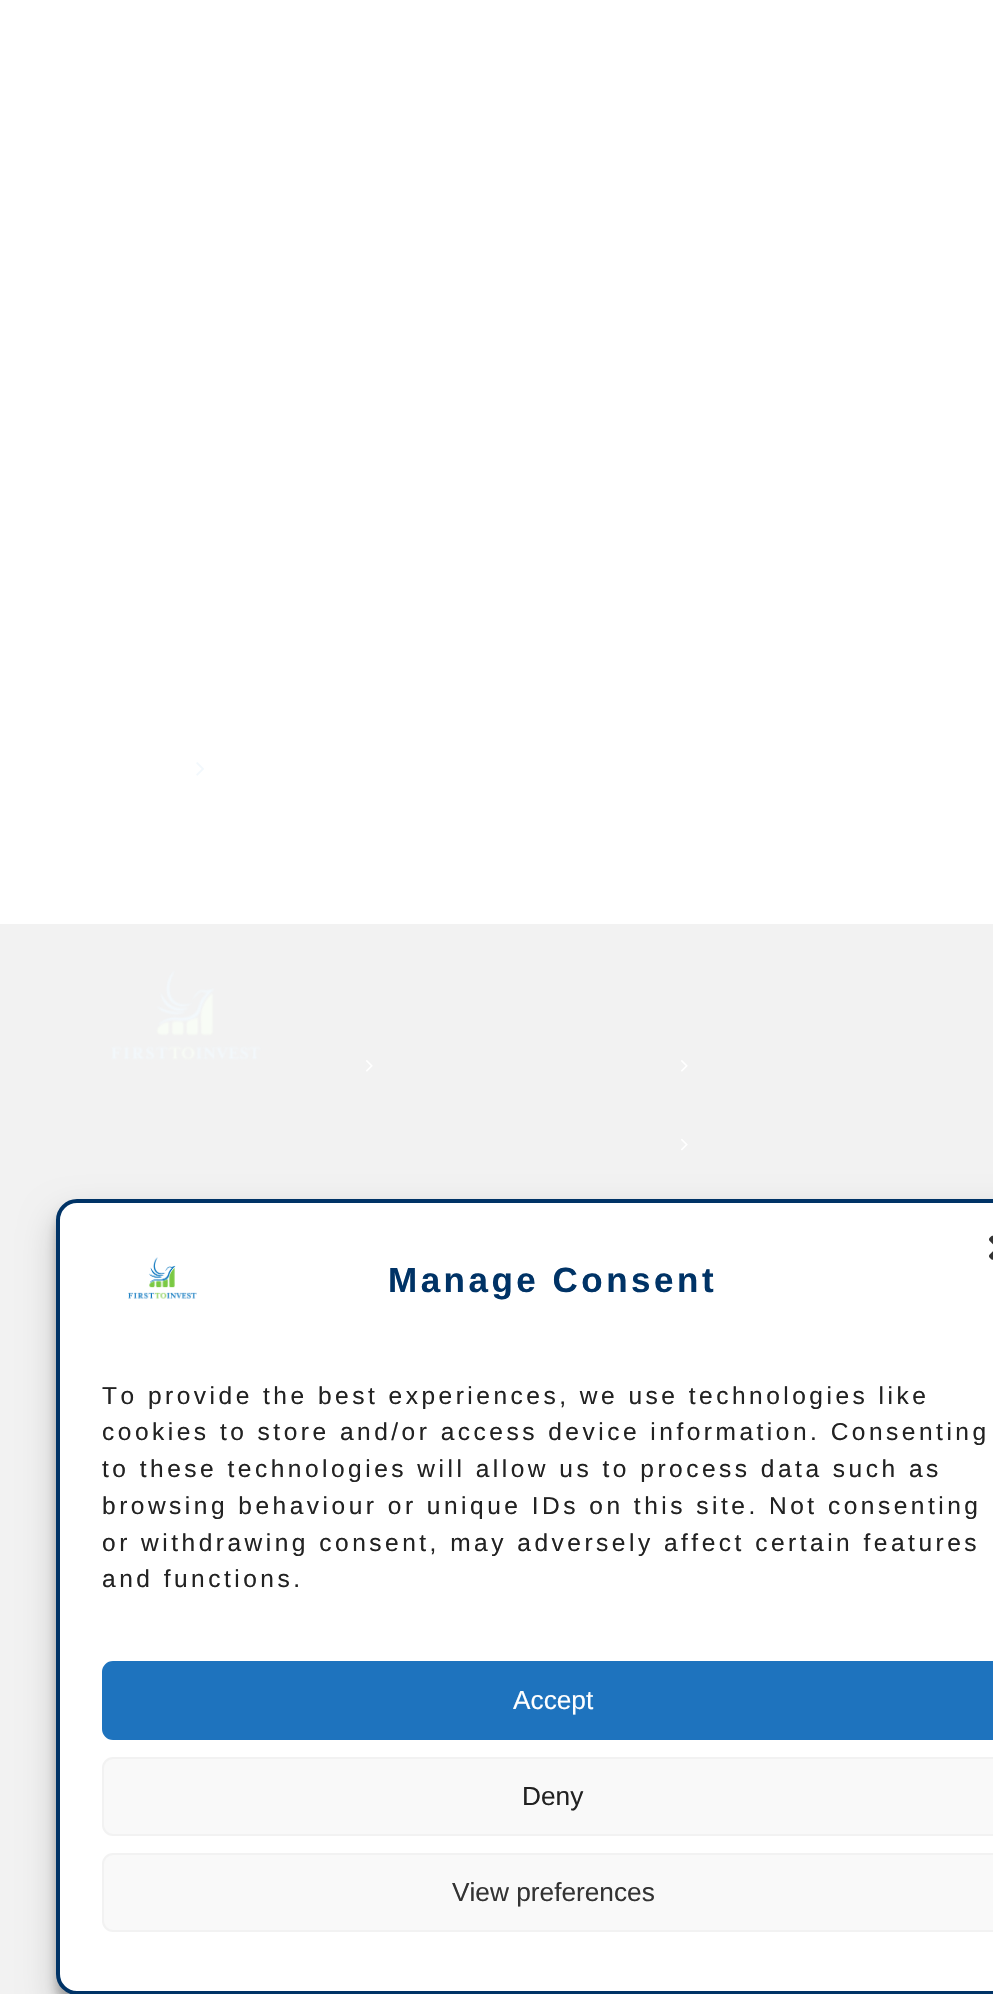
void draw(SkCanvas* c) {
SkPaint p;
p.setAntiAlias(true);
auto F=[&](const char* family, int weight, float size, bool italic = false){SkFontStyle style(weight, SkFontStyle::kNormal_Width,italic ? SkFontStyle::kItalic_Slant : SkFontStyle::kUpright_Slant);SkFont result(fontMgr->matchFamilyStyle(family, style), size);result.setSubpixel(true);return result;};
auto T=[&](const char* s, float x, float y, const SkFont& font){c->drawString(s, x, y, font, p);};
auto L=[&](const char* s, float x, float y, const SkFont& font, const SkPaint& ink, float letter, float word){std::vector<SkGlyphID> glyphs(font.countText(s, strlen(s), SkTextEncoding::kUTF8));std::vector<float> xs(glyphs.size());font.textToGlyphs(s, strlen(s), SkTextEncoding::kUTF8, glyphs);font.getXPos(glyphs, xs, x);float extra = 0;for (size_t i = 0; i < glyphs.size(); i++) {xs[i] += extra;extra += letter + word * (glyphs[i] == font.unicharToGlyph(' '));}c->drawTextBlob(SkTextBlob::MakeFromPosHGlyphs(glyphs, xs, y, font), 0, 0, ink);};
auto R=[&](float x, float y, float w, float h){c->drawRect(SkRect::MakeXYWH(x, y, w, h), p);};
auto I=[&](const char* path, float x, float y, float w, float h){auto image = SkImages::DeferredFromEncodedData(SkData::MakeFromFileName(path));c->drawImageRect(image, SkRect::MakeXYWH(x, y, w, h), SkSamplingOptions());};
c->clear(0xffffffff);
I("1.png",196,762,9,14);
p.setColor(0xfff2f2f2);
R(0,924,993,1070);
I("2.png",111,969,151,92);
I("3.png",365,1060,8,12);
I("3.png",680,1060,8,12);
I("4.png",680,1138,8,13);
p.setColor(0x3b000000);
p.setMaskFilter(SkMaskFilter::MakeBlur(kNormal_SkBlurStyle, 5));
c->drawRoundRect(SkRect::MakeXYWH(56,1209,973,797),21,21,p);
p.setMaskFilter(nullptr);
p.setColor(0x30000000);
p.setMaskFilter(SkMaskFilter::MakeBlur(kNormal_SkBlurStyle, 17.5));
c->drawRoundRect(SkRect::MakeXYWH(56,1216,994,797),21,21,p);
p.setMaskFilter(nullptr);
p.setColor(0xffffffff);
c->drawRoundRect(SkRect::MakeXYWH(58,1201,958,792),19,19,p);
p.setStroke(true);
p.setStrokeWidth(4);
p.setColor(0xff003366);
c->drawRoundRect(SkRect::MakeXYWH(58,1201,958,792),19,19,p);
I("5.png",989,1235,4,25);
I("6.png",128,1257,69,42);
auto f1 = F("Liberation Sans",700,35);
p.setStroke(false);
L("Manage Consent",388,1292,f1,p,3.5,0);
auto f2 = F("Liberation Sans",400,24.5);
p.setColor(0xff222222);
L("To provide the best experiences, we use technologies like",102,1404,f2,p,3.5,0);
L("cookies to store and/or access device information. Consenting",102,1440,f2,p,3.5,0);
L("to these technologies will allow us to process data such as",102,1477,f2,p,3.5,0);
L("browsing behaviour or unique IDs on this site. Not consenting",102,1514,f2,p,3.5,0);
L("or withdrawing consent, may adversely affect certain features",102,1551,f2,p,3.5,0);
L("and functions.",102,1587,f2,p,3.5,0);
p.setColor(0xff1e73be);
c->drawRoundRect(SkRect::MakeXYWH(103,1662,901,77),10,10,p);
p.setStroke(true);
p.setStrokeWidth(2);
c->drawRoundRect(SkRect::MakeXYWH(103,1662,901,77),10,10,p);
auto f3 = F("Liberation Sans",400,26.25);
p.setStroke(false);
p.setColor(0xffffffff);
T("Accept",513,1709,f3);
p.setColor(0xfff9f9f9);
c->drawRoundRect(SkRect::MakeXYWH(103,1758,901,77),10,10,p);
p.setStroke(true);
p.setColor(0xfff2f2f2);
c->drawRoundRect(SkRect::MakeXYWH(103,1758,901,77),10,10,p);
p.setStroke(false);
p.setColor(0xff222222);
T("Deny",522,1805,f3);
p.setColor(0xfff9f9f9);
c->drawRoundRect(SkRect::MakeXYWH(103,1854,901,77),10,10,p);
p.setStroke(true);
p.setColor(0xfff2f2f2);
c->drawRoundRect(SkRect::MakeXYWH(103,1854,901,77),10,10,p);
p.setStroke(false);
p.setColor(0xff333333);
T("View preferences",452,1901,f3);
}
